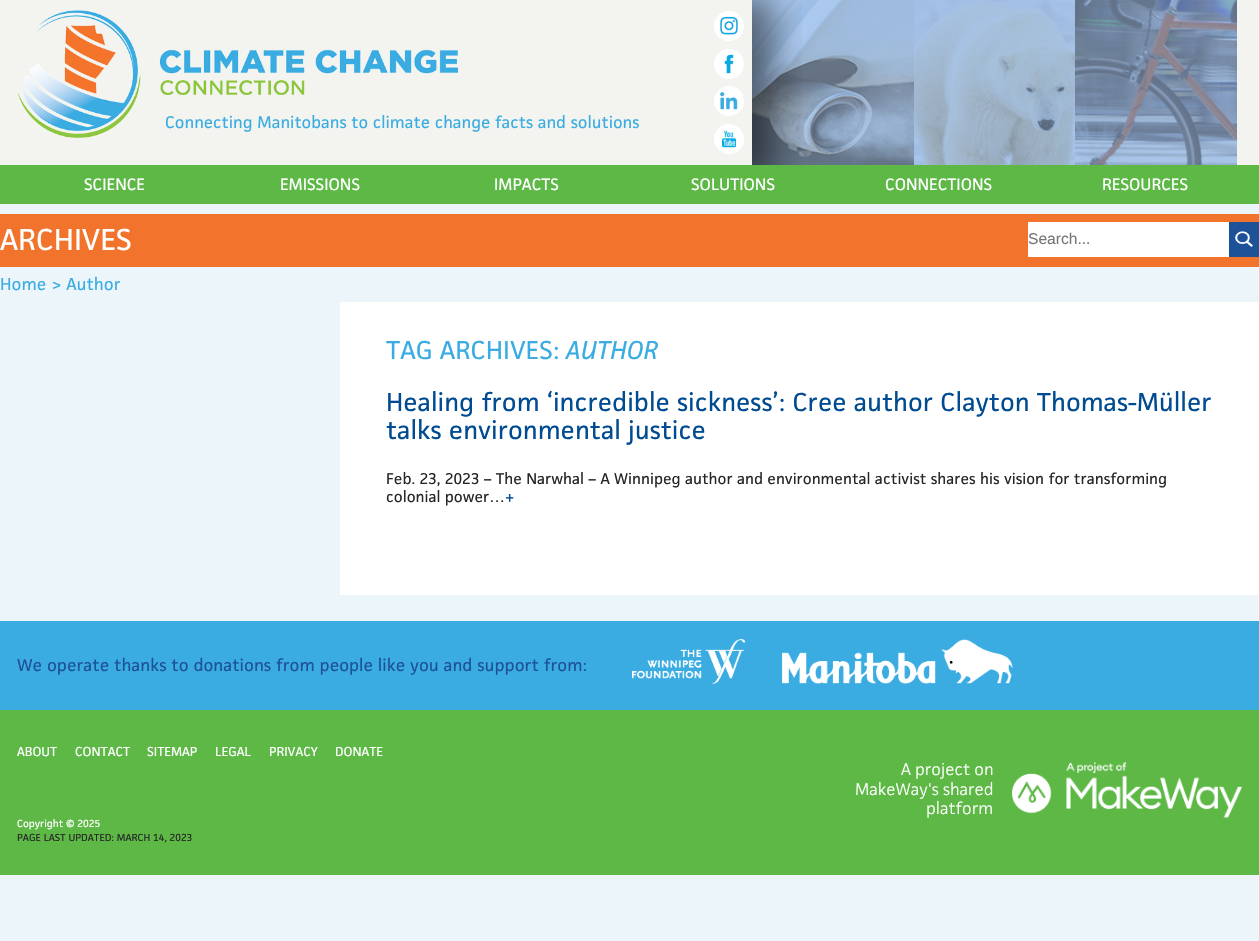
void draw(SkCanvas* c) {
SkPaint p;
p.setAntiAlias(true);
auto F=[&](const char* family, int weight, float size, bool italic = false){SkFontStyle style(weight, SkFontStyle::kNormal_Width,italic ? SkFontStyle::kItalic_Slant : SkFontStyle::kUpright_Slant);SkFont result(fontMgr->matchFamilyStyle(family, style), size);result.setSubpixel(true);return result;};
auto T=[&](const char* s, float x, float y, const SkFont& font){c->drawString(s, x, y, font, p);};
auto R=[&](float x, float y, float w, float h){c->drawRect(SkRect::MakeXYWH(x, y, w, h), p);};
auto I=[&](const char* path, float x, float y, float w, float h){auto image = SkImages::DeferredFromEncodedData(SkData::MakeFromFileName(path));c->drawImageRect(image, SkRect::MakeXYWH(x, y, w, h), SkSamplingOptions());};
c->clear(0xffecf6fa);
p.setColor(0xfff3f4ef);
R(0,0,1259,165);
I("6.png",752,0,162,165);
p.setColor(0xfff2732c);
R(0,214,1259,53);
c->save();
c->clipRect(SkRect::MakeXYWH(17,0,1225,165));
c->clipRect(SkRect::MakeXYWH(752,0,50,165));
p.setColor(0x80000000);
p.setMaskFilter(SkMaskFilter::MakeBlur(kNormal_SkBlurStyle, 16));
c->drawRect(SkRect::MakeXYWH(39,-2,735,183),p);
p.setMaskFilter(nullptr);
c->restore();
I("1.png",17,10,441,128);
I("2.png",714,11,30,30);
I("3.png",714,49,30,30);
I("4.png",714,86,30,30);
I("5.png",714,124,30,30);
auto f1 = F("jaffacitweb",400,15.6);
p.setColor(0xff3aace2);
T("Connecting Manitobans to climate change facts and solutions",165,128,f1);
I("7.png",914,0,161,165);
I("8.png",1075,0,162,165);
p.setColor(0xff5db846);
R(0,165,1259,39);
auto f2 = F("jaffacitweb",400,15.25);
p.setColor(0xffffffff);
T("SCIENCE",84,190,f2);
T("EMISSIONS",280,190,f2);
T("IMPACTS",494,190,f2);
T("SOLUTIONS",691,190,f2);
T("CONNECTIONS",885,190,f2);
T("RESOURCES",1102,190,f2);
auto f3 = F("jaffacitweb",400,28);
T("ARCHIVES",0,250,f3);
R(1028,222,201,35);
auto f4 = F("Liberation Sans",400,15.6);
p.setColor(0xff757575);
T("Search...",1028,244,f4);
p.setColor(0xff1d5299);
R(1229,222,30,35);
I("9.png",1235,231,18,16);
auto f5 = F("jaffacitweb",400,16);
p.setColor(0xff3aace2);
T("Home > Author",0,290,f5);
p.setColor(0xffffffff);
R(340,302,919,293);
auto f6 = F("jaffacitweb",400,24);
p.setColor(0xff3aace2);
T("TAG ARCHIVES:",386,359,f6);
auto f7 = F("jaffacitweb",400,24,true);
T("AUTHOR",566,359,f7);
p.setColor(0xff004b91);
T("Healing from ‘incredible sickness’: Cree author Clayton Thomas-Müller",386,411,f6);
T("talks environmental justice",386,439,f6);
auto f8 = F("jaffacitweb",400,14.4);
p.setColor(0xff262626);
T("Feb. 23, 2023 – The Narwhal – A Winnipeg author and environmental activist shares his vision for transforming",386,484,f8);
T("colonial power…",386,502,f8);
p.setColor(0xff004b91);
T("+",505,502,f8);
p.setColor(0xff3aace2);
R(0,621,1259,89);
p.setColor(0xff1d5299);
T("We operate thanks to donations from people like you and support from:",17,671,f5);
I("10.png",632,639,113,45);
I("11.png",782,639,231,45);
p.setColor(0xff5db846);
R(0,710,1259,165);
auto f9 = F("jaffacitweb",400,12);
p.setColor(0xffffffff);
T("ABOUT",17,756,f9);
T("CONTACT",75,756,f9);
T("SITEMAP",147,756,f9);
T("LEGAL",215,756,f9);
T("PRIVACY",269,756,f9);
T("DONATE",335,756,f9);
auto f10 = F("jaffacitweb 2",400,15.6);
T("A project on",901,775,f10);
T("MakeWay's shared",855,795,f10);
T("platform",926,814,f10);
I("12.png",1012,762,230,56);
auto f11 = F("jaffacitweb",400,9.5);
T("Copyright © 2025",17,827,f11);
auto f12 = F("jaffacitweb",400,9.4);
p.setColor(0xff262626);
T("PAGE LAST UPDATED: MARCH 14, 2023",17,841,f12);
}
